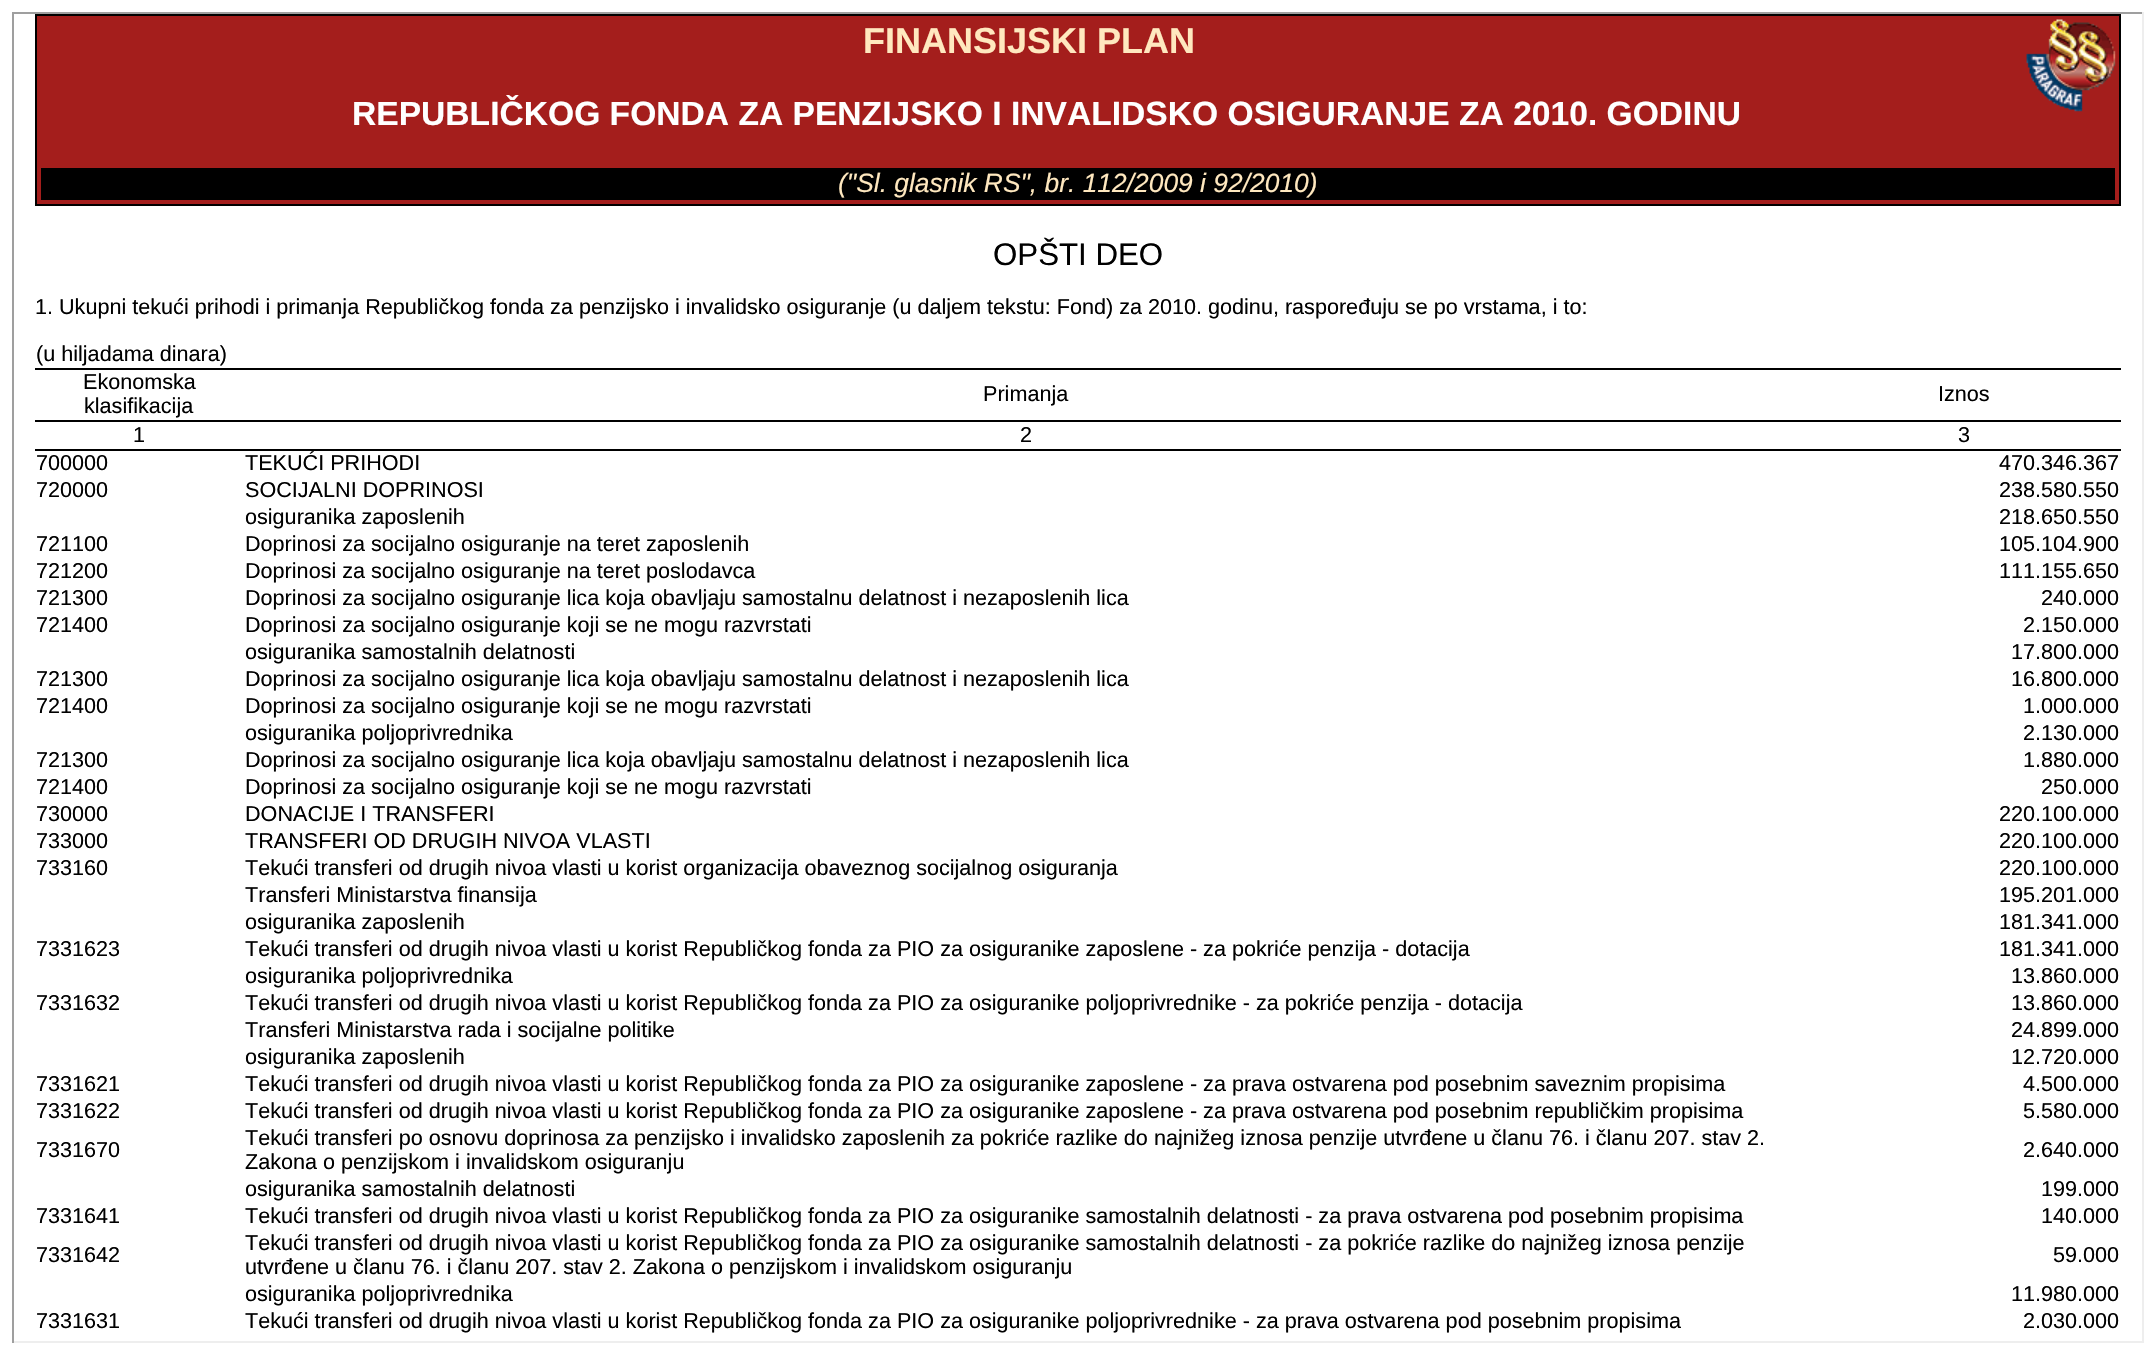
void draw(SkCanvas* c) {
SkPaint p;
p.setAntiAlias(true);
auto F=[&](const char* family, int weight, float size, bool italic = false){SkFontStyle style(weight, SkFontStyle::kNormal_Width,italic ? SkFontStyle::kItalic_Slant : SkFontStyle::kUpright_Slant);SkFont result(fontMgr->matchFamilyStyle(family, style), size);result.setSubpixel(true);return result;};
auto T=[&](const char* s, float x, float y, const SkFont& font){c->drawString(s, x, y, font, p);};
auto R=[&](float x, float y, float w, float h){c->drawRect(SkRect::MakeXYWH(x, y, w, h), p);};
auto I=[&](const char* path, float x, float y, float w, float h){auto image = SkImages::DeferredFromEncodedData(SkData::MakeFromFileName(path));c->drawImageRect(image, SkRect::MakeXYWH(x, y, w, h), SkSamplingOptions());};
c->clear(0xffffffff);
p.setColor(0xff9f9f9f);
R(12,12,2132,2);
p.setColor(0xffeeeeee);
R(2142,12,2,1331);
R(12,1341,2132,2);
p.setColor(0xff9f9f9f);
R(12,12,2,1331);
p.setColor(0xffa41e1c);
R(37,16,2082,188);
I("1.png",2026,19,90,93);
p.setStroke(true);
p.setStrokeWidth(2);
p.setColor(0xff000000);
c->drawRect(SkRect::MakeXYWH(36,15,2084,190),p);
auto f1 = F("Liberation Sans",700,36);
p.setStroke(false);
p.setColor(0xffffe8bf);
T("FINANSIJSKI PLAN",863,53,f1);
auto f2 = F("Liberation Sans",700,33.6);
p.setColor(0xffffffff);
T("REPUBLIČKOG FONDA ZA PENZIJSKO I INVALIDSKO OSIGURANJE ZA 2010. GODINU",352,125,f2);
p.setColor(0xff000000);
R(41,168,2074,32);
auto f3 = F("Liberation Sans",400,26.4,true);
p.setColor(0xffffe8bf);
T("(\"Sl. glasnik RS\", br. 112/2009 i 92/2010)",838,192,f3);
auto f4 = F("Liberation Sans",400,31.25);
p.setColor(0xff000000);
T("OPŠTI DEO",993,265,f4);
auto f5 = F("Liberation Sans",400,21.6);
T("1. Ukupni tekući prihodi i primanja Republičkog fonda za penzijsko i invalidsko osiguranje (u daljem tekstu: Fond) za 2010. godinu, raspoređuju se po vrstama, i to:",35,314,f5);
T("(u hiljadama dinara)",36,361,f5);
R(35,368,2086,2);
T("Ekonomska",83,389,f5);
T("klasifikacija",84,413,f5);
T("Primanja",983,401,f5);
T("Iznos",1938,401,f5);
R(35,420,2086,2);
R(35,449,2086,2);
T("1",133,442,f5);
T("2",1020,442,f5);
T("3",1958,442,f5);
T("700000",36,470,f5);
T("TEKUĆI PRIHODI",245,470,f5);
T("470.346.367",1999,470,f5);
T("720000",36,497,f5);
T("SOCIJALNI DOPRINOSI",245,497,f5);
T("238.580.550",1999,497,f5);
T("osiguranika zaposlenih",245,524,f5);
T("218.650.550",1999,524,f5);
T("721100",36,551,f5);
T("Doprinosi za socijalno osiguranje na teret zaposlenih",245,551,f5);
T("105.104.900",1999,551,f5);
T("721200",36,578,f5);
T("Doprinosi za socijalno osiguranje na teret poslodavca",245,578,f5);
T("111.155.650",1999,578,f5);
T("721300",36,605,f5);
T("Doprinosi za socijalno osiguranje lica koja obavljaju samostalnu delatnost i nezaposlenih lica",245,605,f5);
T("240.000",2041,605,f5);
T("721400",36,632,f5);
T("Doprinosi za socijalno osiguranje koji se ne mogu razvrstati",245,632,f5);
T("2.150.000",2023,632,f5);
T("osiguranika samostalnih delatnosti",245,659,f5);
T("17.800.000",2011,659,f5);
T("721300",36,686,f5);
T("Doprinosi za socijalno osiguranje lica koja obavljaju samostalnu delatnost i nezaposlenih lica",245,686,f5);
T("16.800.000",2011,686,f5);
T("721400",36,713,f5);
T("Doprinosi za socijalno osiguranje koji se ne mogu razvrstati",245,713,f5);
T("1.000.000",2023,713,f5);
T("osiguranika poljoprivrednika",245,740,f5);
T("2.130.000",2023,740,f5);
T("721300",36,767,f5);
T("Doprinosi za socijalno osiguranje lica koja obavljaju samostalnu delatnost i nezaposlenih lica",245,767,f5);
T("1.880.000",2023,767,f5);
T("721400",36,794,f5);
T("Doprinosi za socijalno osiguranje koji se ne mogu razvrstati",245,794,f5);
T("250.000",2041,794,f5);
T("730000",36,821,f5);
T("DONACIJE I TRANSFERI",245,821,f5);
T("220.100.000",1999,821,f5);
T("733000",36,848,f5);
T("TRANSFERI OD DRUGIH NIVOA VLASTI",245,848,f5);
T("220.100.000",1999,848,f5);
T("733160",36,875,f5);
T("Tekući transferi od drugih nivoa vlasti u korist organizacija obaveznog socijalnog osiguranja",245,875,f5);
T("220.100.000",1999,875,f5);
T("Transferi Ministarstva finansija",245,902,f5);
T("195.201.000",1999,902,f5);
T("osiguranika zaposlenih",245,929,f5);
T("181.341.000",1999,929,f5);
T("7331623",36,956,f5);
T("Tekući transferi od drugih nivoa vlasti u korist Republičkog fonda za PIO za osiguranike zaposlene - za pokriće penzija - dotacija",245,956,f5);
T("181.341.000",1999,956,f5);
T("osiguranika poljoprivrednika",245,983,f5);
T("13.860.000",2011,983,f5);
T("7331632",36,1010,f5);
T("Tekući transferi od drugih nivoa vlasti u korist Republičkog fonda za PIO za osiguranike poljoprivrednike - za pokriće penzija - dotacija",245,1010,f5);
T("13.860.000",2011,1010,f5);
T("Transferi Ministarstva rada i socijalne politike",245,1037,f5);
T("24.899.000",2011,1037,f5);
T("osiguranika zaposlenih",245,1064,f5);
T("12.720.000",2011,1064,f5);
T("7331621",36,1091,f5);
T("Tekući transferi od drugih nivoa vlasti u korist Republičkog fonda za PIO za osiguranike zaposlene - za prava ostvarena pod posebnim saveznim propisima",245,1091,f5);
T("4.500.000",2023,1091,f5);
T("7331622",36,1118,f5);
T("Tekući transferi od drugih nivoa vlasti u korist Republičkog fonda za PIO za osiguranike zaposlene - za prava ostvarena pod posebnim republičkim propisima",245,1118,f5);
T("5.580.000",2023,1118,f5);
T("7331670",36,1157,f5);
T("Tekući transferi po osnovu doprinosa za penzijsko i invalidsko zaposlenih za pokriće razlike do najnižeg iznosa penzije utvrđene u članu 76. i članu 207. stav 2.",245,1145,f5);
T("Zakona o penzijskom i invalidskom osiguranju",245,1169,f5);
T("2.640.000",2023,1157,f5);
T("osiguranika samostalnih delatnosti",245,1196,f5);
T("199.000",2041,1196,f5);
T("7331641",36,1223,f5);
T("Tekući transferi od drugih nivoa vlasti u korist Republičkog fonda za PIO za osiguranike samostalnih delatnosti - za prava ostvarena pod posebnim propisima",245,1223,f5);
T("140.000",2041,1223,f5);
T("7331642",36,1262,f5);
T("Tekući transferi od drugih nivoa vlasti u korist Republičkog fonda za PIO za osiguranike samostalnih delatnosti - za pokriće razlike do najnižeg iznosa penzije",245,1250,f5);
T("utvrđene u članu 76. i članu 207. stav 2. Zakona o penzijskom i invalidskom osiguranju",245,1274,f5);
T("59.000",2053,1262,f5);
T("osiguranika poljoprivrednika",245,1301,f5);
T("11.980.000",2011,1301,f5);
T("7331631",36,1328,f5);
T("Tekući transferi od drugih nivoa vlasti u korist Republičkog fonda za PIO za osiguranike poljoprivrednike - za prava ostvarena pod posebnim propisima",245,1328,f5);
T("2.030.000",2023,1328,f5);
}
